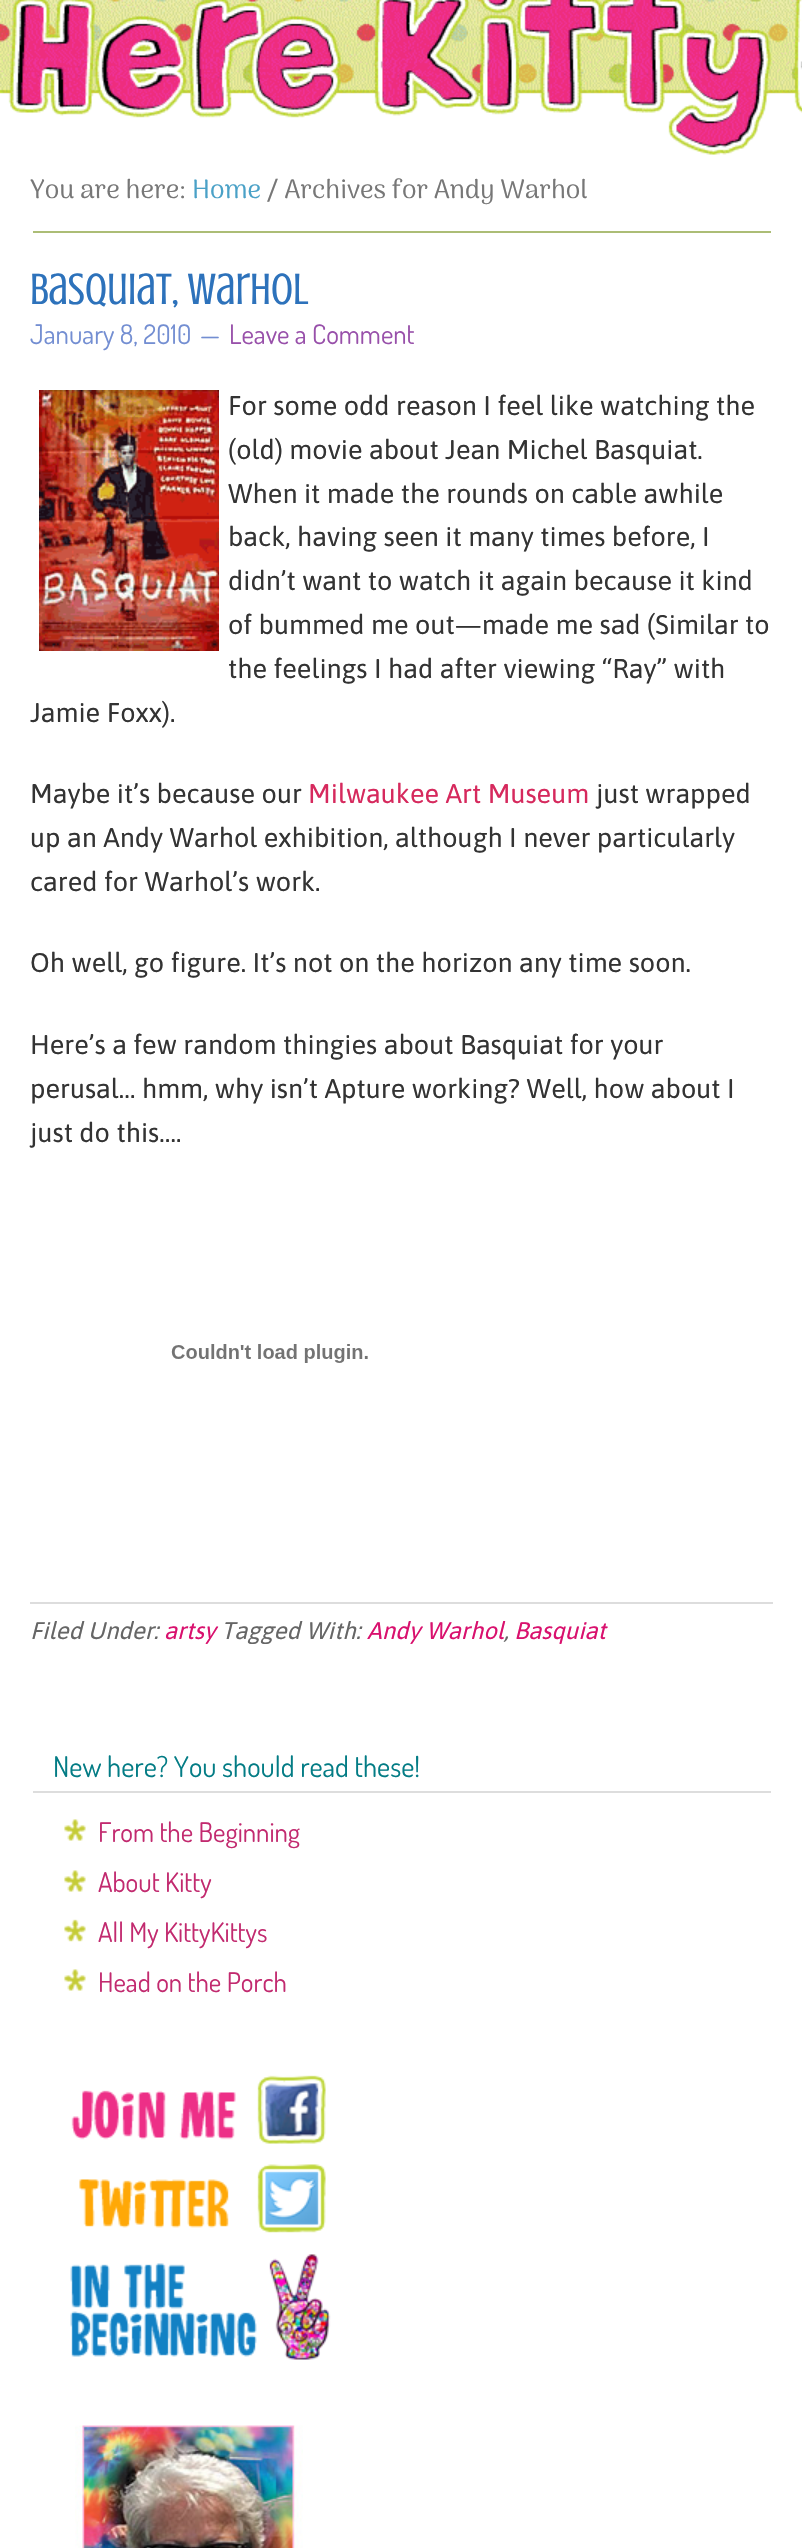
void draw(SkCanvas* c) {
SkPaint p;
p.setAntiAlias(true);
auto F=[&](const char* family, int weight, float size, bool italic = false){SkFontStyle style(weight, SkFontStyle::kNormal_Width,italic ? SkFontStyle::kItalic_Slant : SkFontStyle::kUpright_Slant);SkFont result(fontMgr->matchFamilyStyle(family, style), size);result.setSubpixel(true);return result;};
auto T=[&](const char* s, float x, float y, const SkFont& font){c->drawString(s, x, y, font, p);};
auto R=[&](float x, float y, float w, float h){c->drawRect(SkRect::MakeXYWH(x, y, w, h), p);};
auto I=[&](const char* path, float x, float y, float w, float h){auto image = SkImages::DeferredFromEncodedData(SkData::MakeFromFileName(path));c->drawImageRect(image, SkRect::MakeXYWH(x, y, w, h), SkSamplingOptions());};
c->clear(0xffffffff);
I("1.png",0,0,802,155);
p.setColor(0xffacbd76);
R(33,231,738,2);
auto f1 = F("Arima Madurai",400,26.5);
p.setColor(0xff777777);
T("You are here:",30,198,f1);
p.setColor(0xff4aa1c7);
T("Home",192,198,f1);
p.setColor(0xff777777);
T("/ Archives for Andy Warhol",267,198,f1);
auto f2 = F("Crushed",400,45);
p.setColor(0xff2d72bb);
T("Basquiat, Warhol",30,304,f2);
auto f3 = F("Dosis",400,27);
p.setColor(0xff738ed2);
T("January 8, 2010",30,344,f3);
T("—",200,344,f3);
p.setColor(0xff9850aa);
T("Leave a Comment",229,344,f3);
I("2.png",39,390,180,261);
auto f4 = F("Asap",400,27);
p.setColor(0xff333333);
T("For some odd reason I feel like watching the",228,415,f4);
T("(old) movie about Jean Michel Basquiat.",228,459,f4);
T("When it made the rounds on cable awhile",228,503,f4);
T("back, having seen it many times before, I",228,546,f4);
T("didn’t want to watch it again because it kind",228,590,f4);
T("of bummed me out—made me sad (Similar to",228,634,f4);
T("the feelings I had after viewing “Ray” with",228,678,f4);
T("Jamie Foxx).",30,722,f4);
T("Maybe it’s because our",30,803,f4);
p.setColor(0xffd6295d);
T("Milwaukee Art Museum",308,803,f4);
p.setColor(0xff333333);
T("just wrapped",596,803,f4);
T("up an Andy Warhol exhibition, although I never particularly",30,847,f4);
T("cared for Warhol’s work.",30,891,f4);
T("Oh well, go figure. It’s not on the horizon any time soon.",30,972,f4);
T("Here’s a few random thingies about Basquiat for your",30,1054,f4);
T("perusal… hmm, why isn’t Apture working? Well, how about I",30,1098,f4);
T("just do this….",30,1142,f4);
I("3.png",171,1344,197,19);
p.setColor(0xffdddddd);
R(30,1602,743,2);
auto f5 = F("Asap",400,24,true);
p.setColor(0xff666666);
T("Filed Under:",30,1639,f5);
p.setColor(0xffd9116e);
T("artsy",164,1639,f5);
p.setColor(0xff666666);
T("Tagged With:",221,1639,f5);
p.setColor(0xffd9116e);
T("Andy Warhol",367,1639,f5);
p.setColor(0xff666666);
T(",",504,1639,f5);
p.setColor(0xffd9116e);
T("Basquiat",514,1639,f5);
p.setColor(0xffdddddd);
R(33,1791,738,2);
auto f6 = F("Dosis",400,28.5);
p.setColor(0xff037c85);
T("New here? You should read these!",53,1777,f6);
I("4.png",64,1819,22,22);
p.setColor(0xffc22a6f);
T("From the Beginning",98,1842,f3);
I("4.png",64,1870,22,22);
T("About Kitty",98,1892,f3);
I("5.png",64,1919,22,23);
T("All My KittyKittys",98,1942,f3);
I("4.png",64,1969,22,22);
T("Head on the Porch",98,1992,f3);
I("6.png",71,2075,255,69);
I("7.png",79,2164,247,69);
I("8.png",70,2254,261,106);
I("9.png",75,2425,228,123);
}
